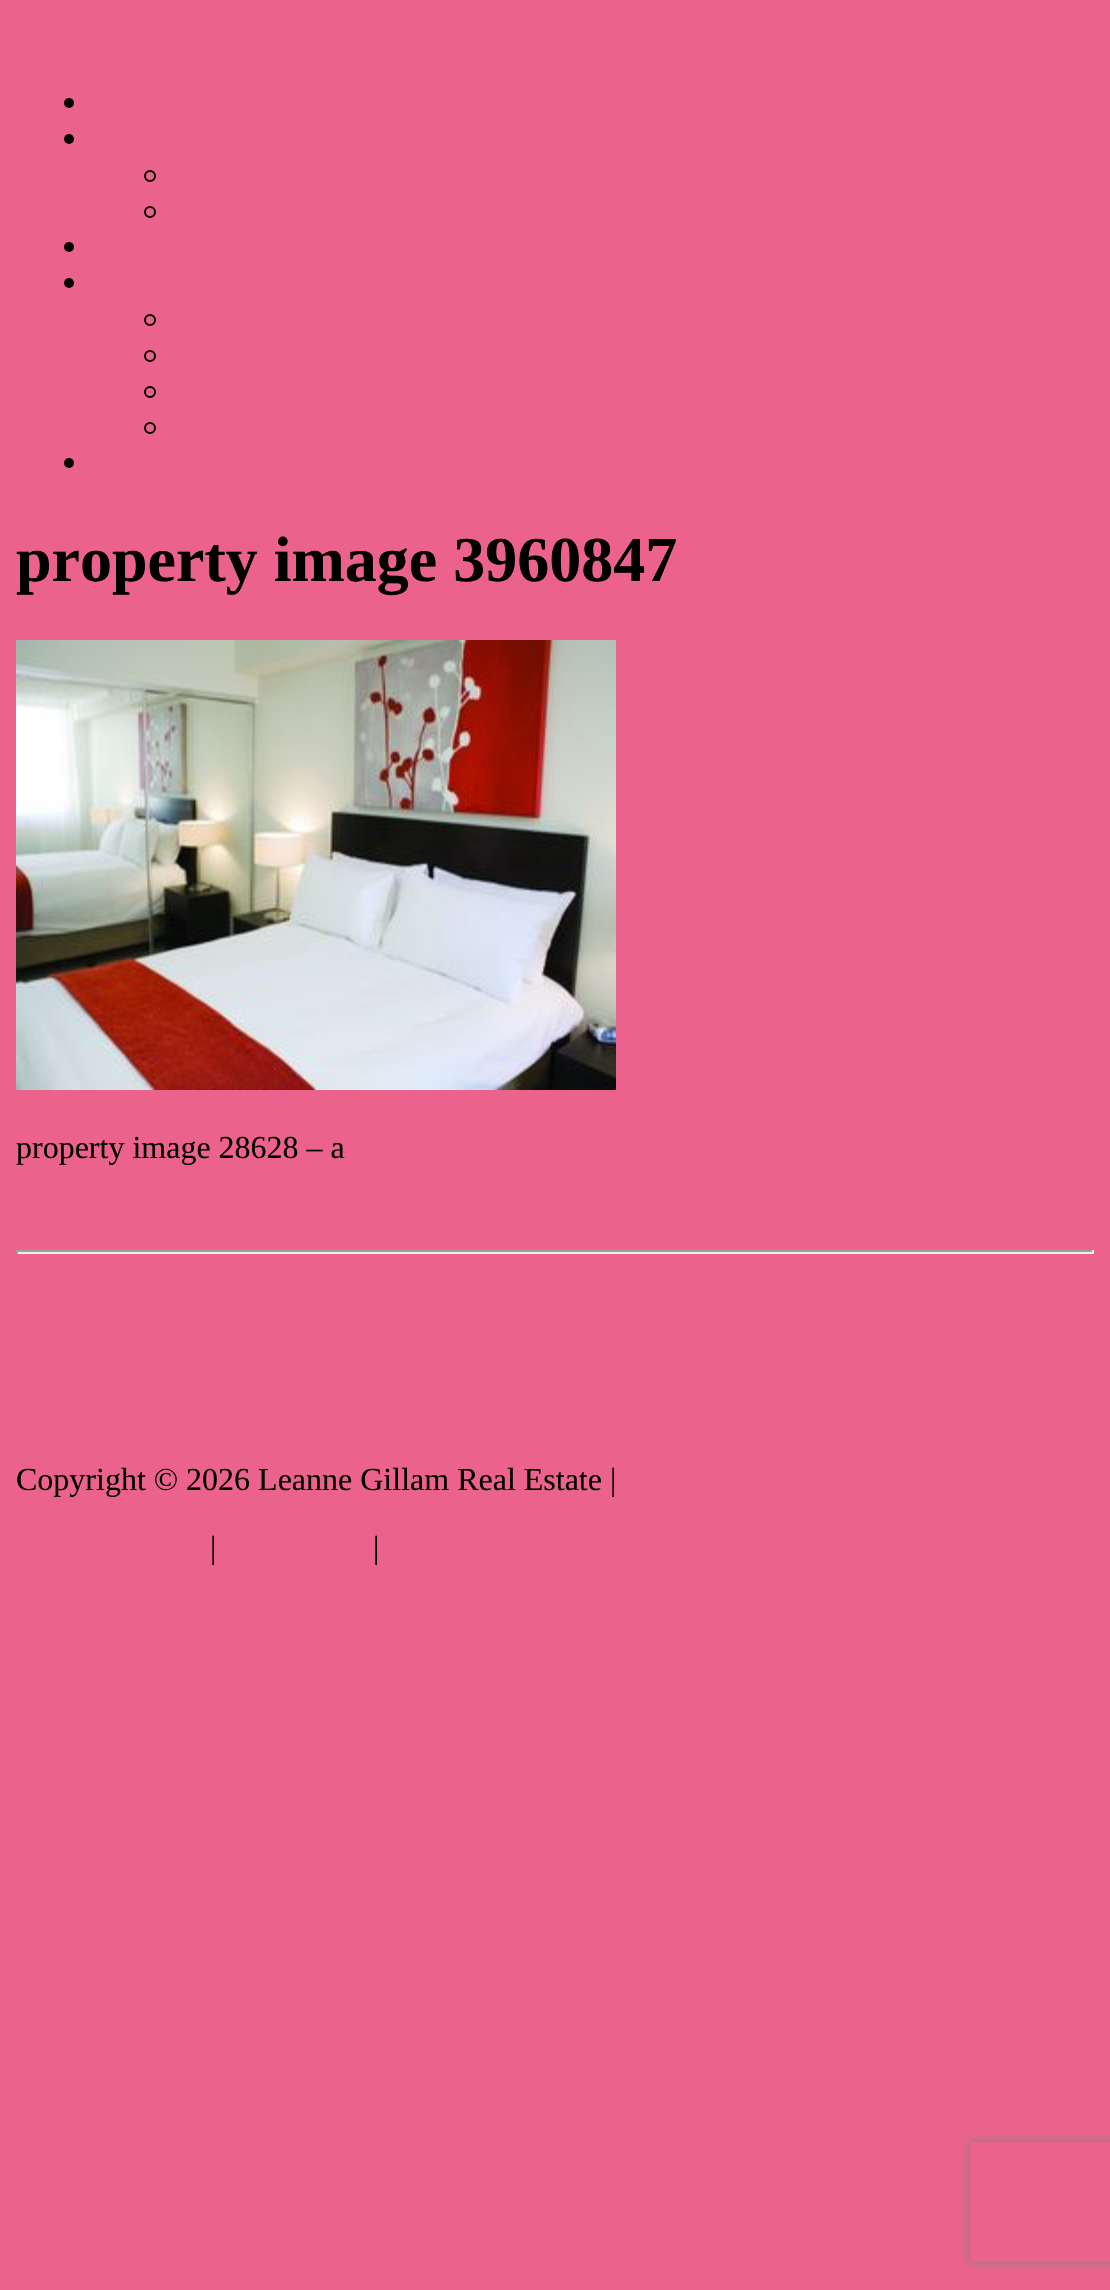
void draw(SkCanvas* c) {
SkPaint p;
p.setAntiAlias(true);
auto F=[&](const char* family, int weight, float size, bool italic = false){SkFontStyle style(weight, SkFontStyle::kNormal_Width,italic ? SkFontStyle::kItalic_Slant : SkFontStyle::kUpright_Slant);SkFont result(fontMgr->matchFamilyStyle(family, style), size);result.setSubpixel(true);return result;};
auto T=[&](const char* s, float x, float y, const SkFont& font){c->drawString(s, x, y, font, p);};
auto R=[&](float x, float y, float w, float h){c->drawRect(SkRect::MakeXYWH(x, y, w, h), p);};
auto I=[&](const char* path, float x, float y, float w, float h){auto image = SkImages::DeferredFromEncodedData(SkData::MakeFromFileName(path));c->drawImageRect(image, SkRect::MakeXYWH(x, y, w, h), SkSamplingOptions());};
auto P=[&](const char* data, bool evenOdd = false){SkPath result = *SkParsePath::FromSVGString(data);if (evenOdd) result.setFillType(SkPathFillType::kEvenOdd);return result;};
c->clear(0xffeb638c);
p.setColor(0xff000000);
c->drawCircle(69,103,5,p);
c->drawCircle(69,139,5,p);
p.setStroke(true);
p.setStrokeWidth(2);
c->drawCircle(150,176,5,p);
c->drawCircle(150,212,5,p);
p.setStroke(false);
c->drawCircle(69,247,5,p);
c->drawCircle(69,283,5,p);
p.setStroke(true);
c->drawCircle(150,320,5,p);
c->drawCircle(150,356,5,p);
c->drawCircle(150,392,5,p);
c->drawCircle(150,428,5,p);
p.setStroke(false);
c->drawCircle(69,463,5,p);
auto f1 = F("Liberation Serif",700,64);
T("property image 3960847",16,581,f1);
I("1.png",16,640,600,450);
auto f2 = F("Liberation Serif",400,32);
T("property image 28628 – a",16,1158,f2);
p.setColor(0xff9f9f9f);
R(16,1250,1078,2);
p.setColor(0xffeeeeee);
R(1092,1250,2,4);
R(16,1252,1078,2);
p.setColor(0xff9f9f9f);
R(16,1250,2,4);
p.setColor(0xff000000);
T("Copyright © 2026 Leanne Gillam Real Estate |",16,1490,f2);
T("|",210,1558,f2);
T("|",373,1558,f2);
c->save();
c->clipPath(P("M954 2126h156v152h-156zm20 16h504c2 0 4 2 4 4v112c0 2-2 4-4 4h-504c-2 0-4-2-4-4v-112c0-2 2-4 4-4z",true),true);
p.setColor(0xff808080);
p.setMaskFilter(SkMaskFilter::MakeBlur(kNormal_SkBlurStyle, 5));
c->drawRoundRect(SkRect::MakeXYWH(970,2142,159,120),4,4,p);
p.setMaskFilter(nullptr);
c->restore();
}
